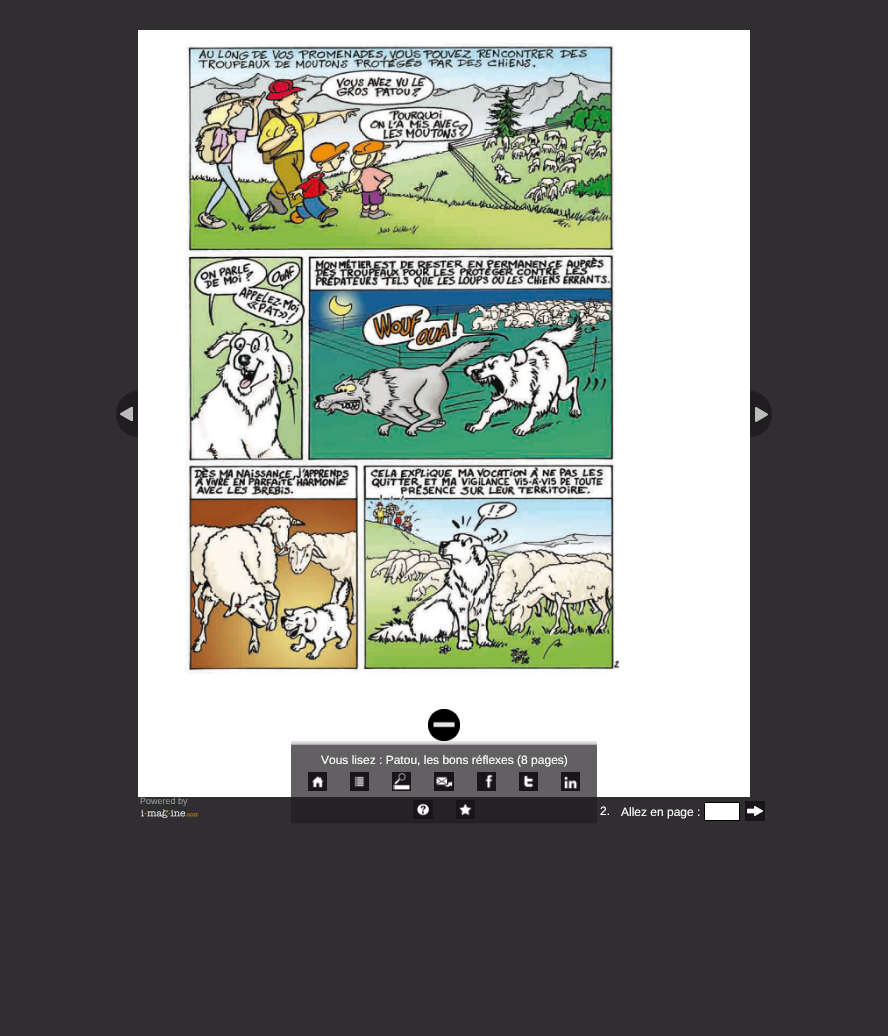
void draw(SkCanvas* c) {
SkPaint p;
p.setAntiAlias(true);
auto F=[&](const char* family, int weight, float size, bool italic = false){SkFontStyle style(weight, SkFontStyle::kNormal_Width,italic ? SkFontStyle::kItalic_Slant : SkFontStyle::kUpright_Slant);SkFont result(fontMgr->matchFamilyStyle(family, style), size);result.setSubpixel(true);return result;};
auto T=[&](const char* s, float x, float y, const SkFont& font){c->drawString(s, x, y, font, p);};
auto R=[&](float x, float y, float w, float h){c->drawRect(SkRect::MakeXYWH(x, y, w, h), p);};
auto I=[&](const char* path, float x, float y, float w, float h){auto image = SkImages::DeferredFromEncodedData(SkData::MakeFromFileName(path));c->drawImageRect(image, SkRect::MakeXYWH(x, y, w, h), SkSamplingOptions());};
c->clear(0xff312e32);
I("1.png",116,391,22,46);
p.setColor(0xffffffff);
R(138,30,612,767);
I("2.png",185,42,436,632);
I("3.png",750,391,22,46);
I("4.png",428,709,32,32);
I("5.png",291,741,306,83);
auto f1 = F("Liberation Sans",400,12);
T("Vous lisez : Patou, les bons réflexes (8 pages)",321,764,f1);
I("6.png",308,772,19,19);
I("7.png",350,772,19,19);
I("8.png",392,772,19,19);
I("9.png",434,772,20,19);
I("10.png",477,772,19,19);
I("11.png",519,772,19,19);
I("12.png",561,772,19,19);
I("13.png",413,800,20,19);
I("14.png",456,800,19,19);
auto f2 = F("Liberation Sans",400,9);
p.setColor(0xff999999);
T("Powered by",140,804,f2);
I("15.png",141,809,57,9);
p.setColor(0xffffffff);
T("2.",600,815,f1);
T("Allez en page :",621,816,f1);
c->drawRect(SkRect::MakeXYWH(704.5,802.5,35,18),p);
p.setStroke(true);
p.setStrokeWidth(1);
p.setColor(0xff000000);
c->drawRect(SkRect::MakeXYWH(704.5,802.5,35,18),p);
I("16.png",745,801,20,20);
}
